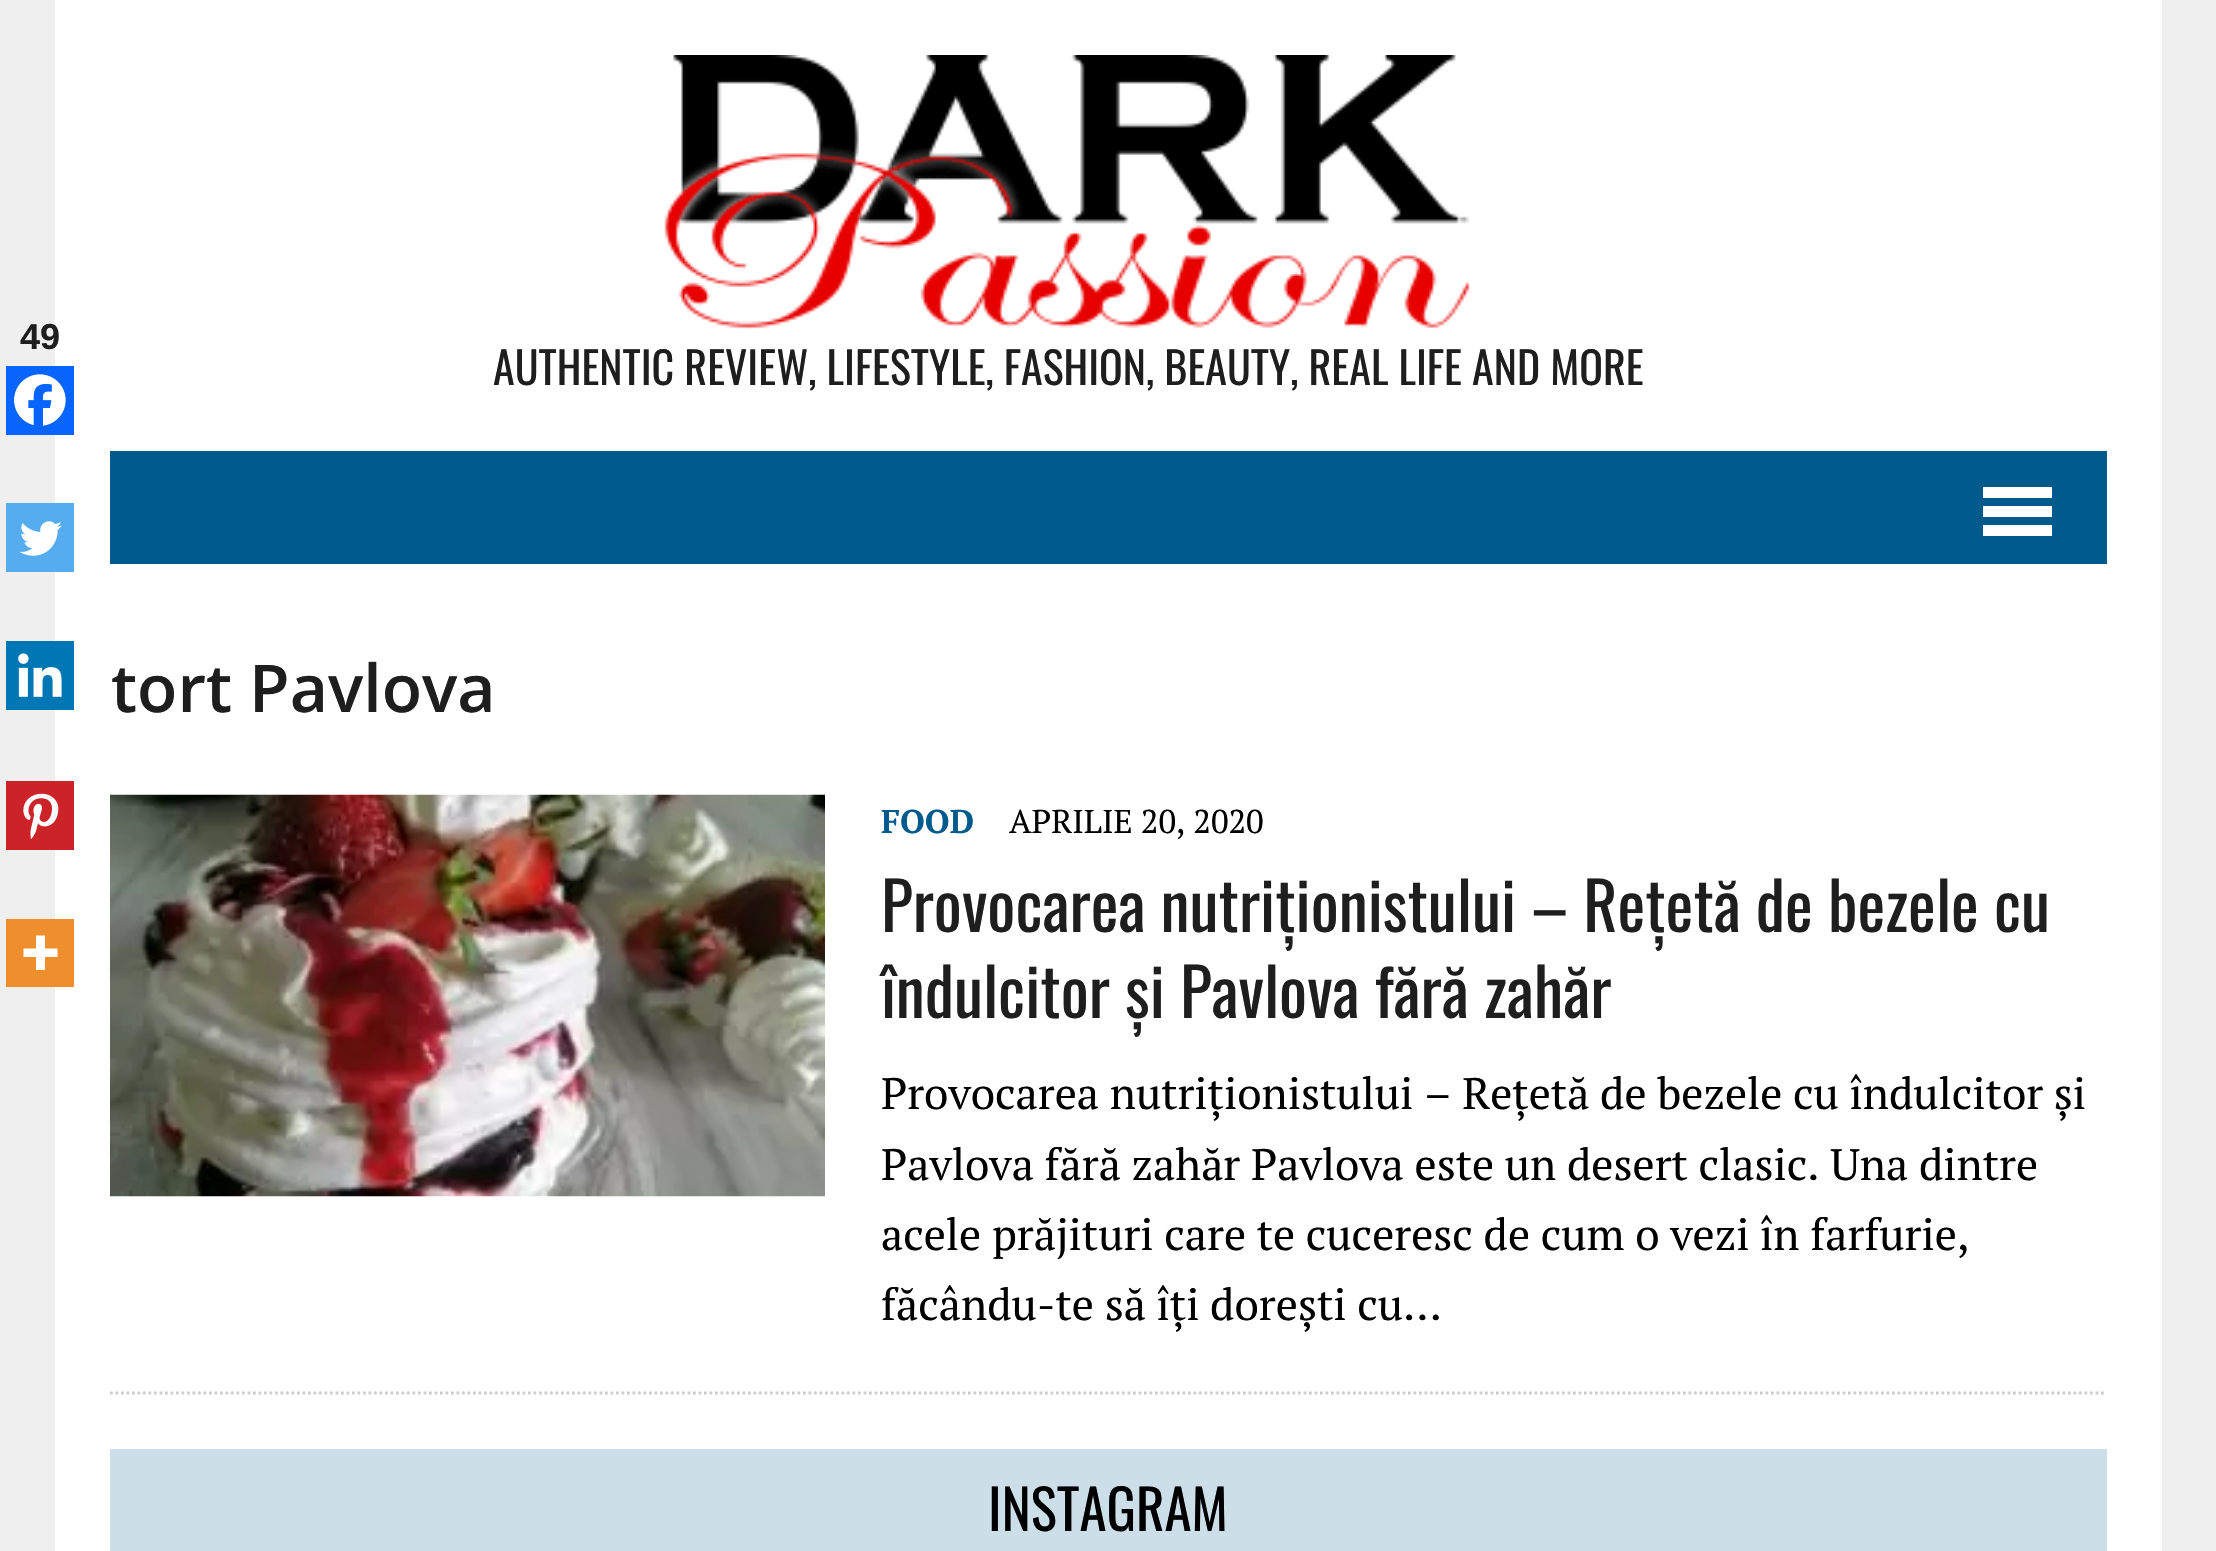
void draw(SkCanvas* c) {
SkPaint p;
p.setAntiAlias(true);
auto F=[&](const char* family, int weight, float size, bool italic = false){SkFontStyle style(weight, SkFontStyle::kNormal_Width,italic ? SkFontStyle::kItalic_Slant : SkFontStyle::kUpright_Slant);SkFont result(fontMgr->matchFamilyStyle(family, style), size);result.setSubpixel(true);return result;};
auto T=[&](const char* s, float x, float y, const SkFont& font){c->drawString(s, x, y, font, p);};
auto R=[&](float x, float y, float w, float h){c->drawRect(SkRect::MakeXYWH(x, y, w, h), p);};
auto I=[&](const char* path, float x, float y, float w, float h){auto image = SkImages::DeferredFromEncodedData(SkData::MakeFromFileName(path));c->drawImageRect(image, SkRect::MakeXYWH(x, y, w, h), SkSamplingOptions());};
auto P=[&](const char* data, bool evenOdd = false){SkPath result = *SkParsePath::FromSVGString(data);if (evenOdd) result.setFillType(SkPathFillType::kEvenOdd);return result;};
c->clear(0xffefefef);
p.setColor(0xffffffff);
R(55,0,2107,1551);
auto f1 = F("Liberation Sans",700,36);
p.setColor(0xff1f1e1e);
T("49",20,349,f1);
p.setColor(0xff0765fe);
R(6,366,68,69);
I("1.png",14,374,52,52);
p.setColor(0xff55acee);
R(6,503,68,69);
I("2.png",19,521,43,35);
p.setColor(0xff0077b5);
R(6,641,68,69);
I("3.png",18,653,44,44);
p.setColor(0xffcc2329);
R(6,781,68,69);
I("4.png",23,793,36,46);
p.setColor(0xffee8e2d);
R(6,919,68,68);
p.setColor(0xffffffff);
c->drawPath(P("M45 948.5v-13h-9v13h-12.5v8.5h12.5v13h9v-13h12.5v-8.5z",true),p);
auto f2 = F("PT Serif",400,44);
p.setColor(0xff000000);
T("Provocarea nutriționistului – Rețetă de bezele cu îndulcitor și",881,1109,f2);
T("Pavlova fără zahăr Pavlova este un desert clasic. Una dintre",881,1180,f2);
T("acele prăjituri care te cuceresc de cum o vezi în farfurie,",881,1250,f2);
T("făcându-te să îți dorești cu…",881,1320,f2);
I("5.png",110,794,715,403);
auto f3 = F("PT Serif",700,33);
p.setColor(0xff005a8c);
T("FOOD",881,833,f3);
auto f4 = F("PT Serif",400,33);
p.setColor(0xff000000);
T("APRILIE 20, 2020",1009,833,f4);
auto f5 = F("Oswald",400,66);
p.setColor(0xff1f1e1e);
T("Provocarea nutriționistului – Rețetă de bezele cu",881,932,f5);
T("îndulcitor și Pavlova fără zahăr",881,1018,f5);
auto f6 = F("Open Sans",600,66);
T("tort Pavlova",111,712,f6);
p.setStroke(true);
p.setStrokeWidth(2.8);
p.setColor(0xffcdcdcd);
p.setPathEffect(SkDashPathEffect::Make({{2.75f,2.75f}}, 0));
c->drawPath(P("M110 1393h1996.5"),p);
p.setPathEffect(nullptr);
p.setStroke(false);
p.setColor(0xffccdee8);
R(110,1449,1997,102);
auto f7 = F("Oswald",400,55);
p.setColor(0xff000000);
T("INSTAGRAM",988,1531,f7);
I("6.png",664,55,806,274);
auto f8 = F("Oswald",400,44);
p.setColor(0xff1f1e1e);
T("AUTHENTIC REVIEW, LIFESTYLE, FASHION, BEAUTY, REAL LIFE AND MORE",493,385,f8);
p.setColor(0xff005a8c);
R(110,451,1997,113);
p.setColor(0xffffffff);
R(1983,487,69,11);
R(1983,506,69,11);
R(1983,525,69,11);
}
